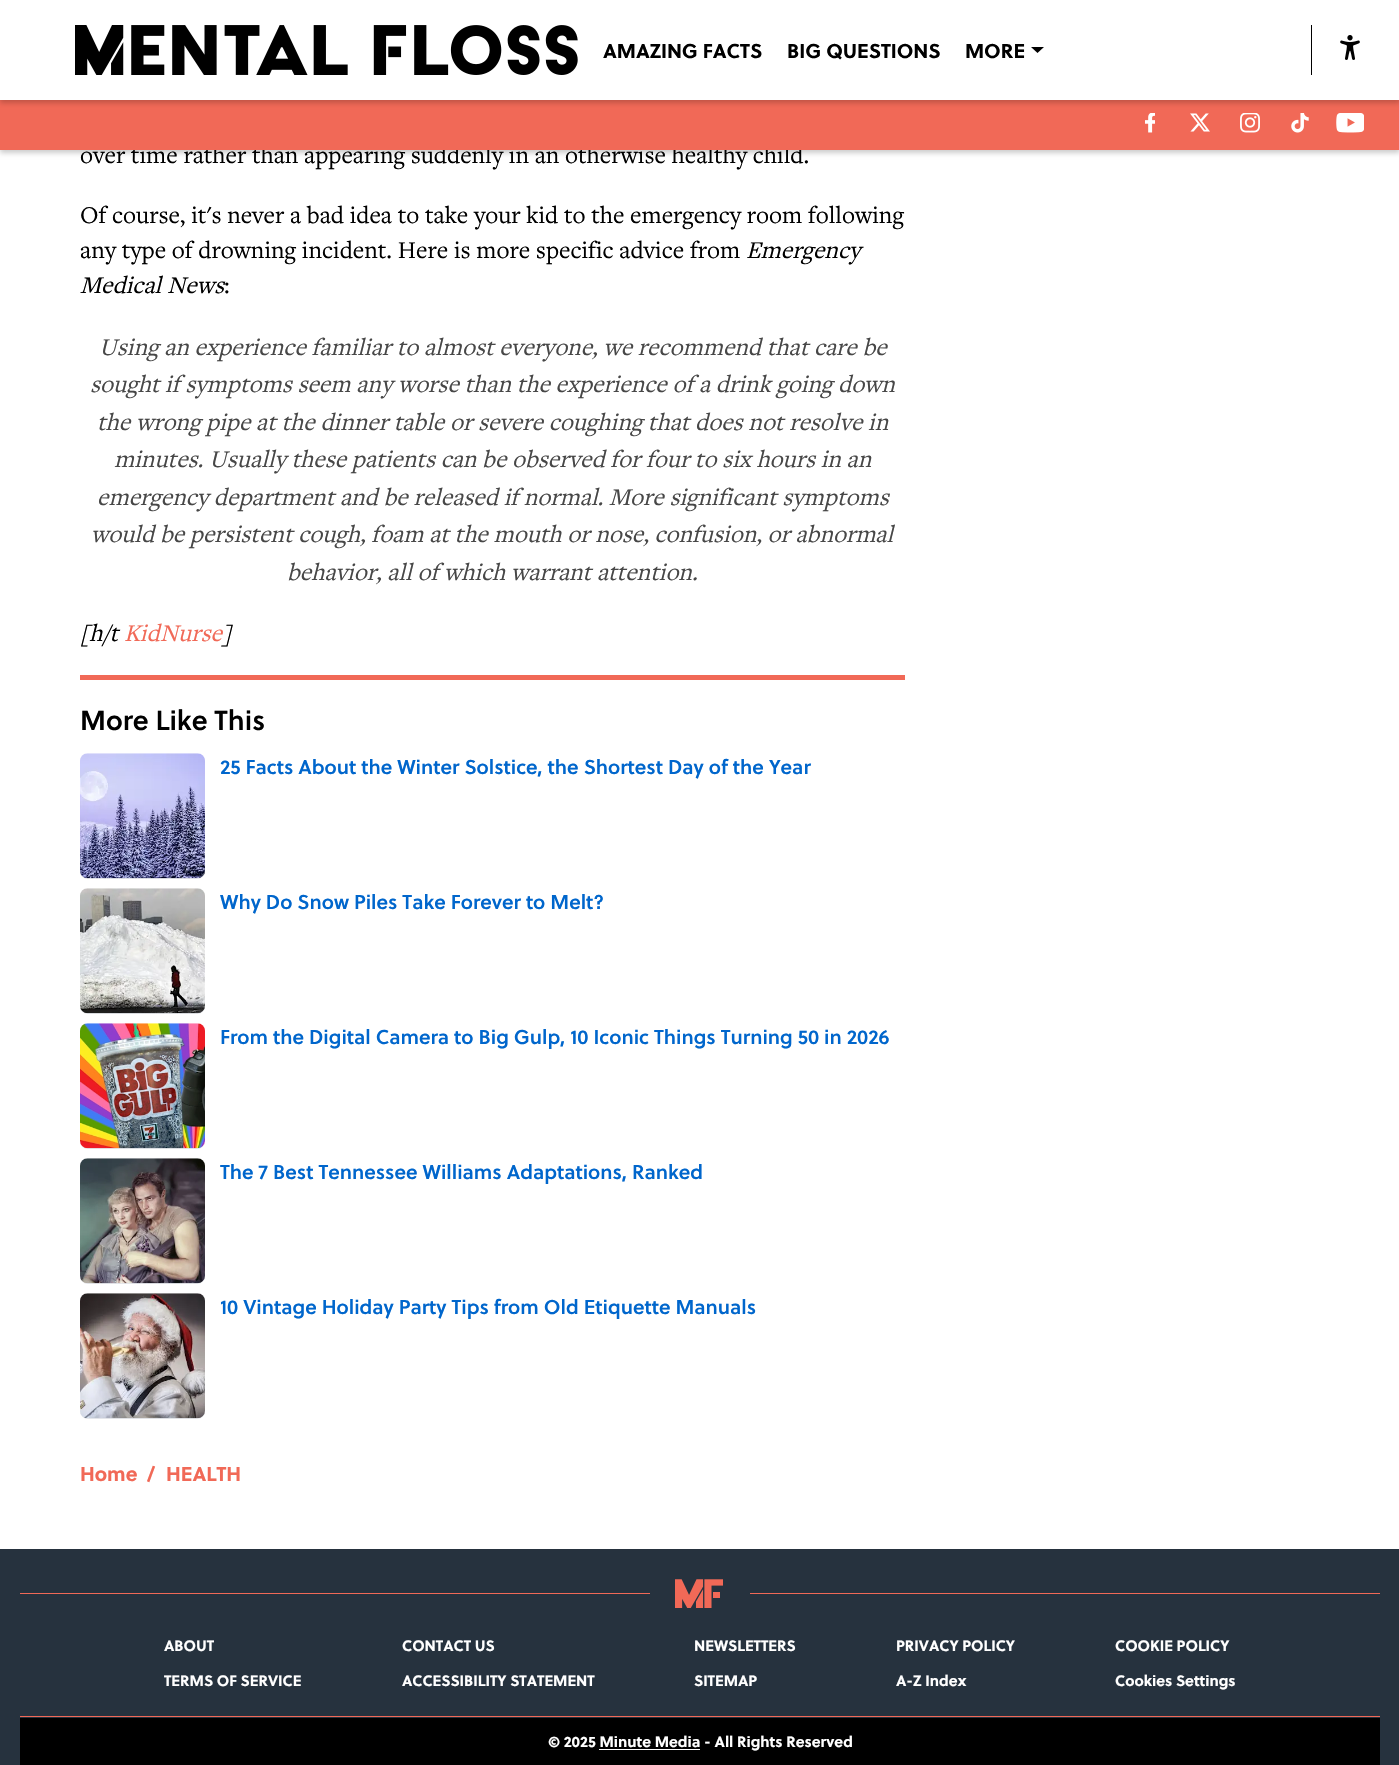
void draw(SkCanvas* c) {
SkPaint p;
p.setAntiAlias(true);
auto F=[&](const char* family, int weight, float size, bool italic = false){SkFontStyle style(weight, SkFontStyle::kNormal_Width,italic ? SkFontStyle::kItalic_Slant : SkFontStyle::kUpright_Slant);SkFont result(fontMgr->matchFamilyStyle(family, style), size);result.setSubpixel(true);return result;};
auto T=[&](const char* s, float x, float y, const SkFont& font){c->drawString(s, x, y, font, p);};
auto R=[&](float x, float y, float w, float h){c->drawRect(SkRect::MakeXYWH(x, y, w, h), p);};
auto Q=[&](float x, float y, float w, float h, float radius){c->drawRoundRect(SkRect::MakeXYWH(x, y, w, h), radius, radius, p);};
auto I=[&](const char* path, float x, float y, float w, float h){auto image = SkImages::DeferredFromEncodedData(SkData::MakeFromFileName(path));c->drawImageRect(image, SkRect::MakeXYWH(x, y, w, h), SkSamplingOptions());};
auto P=[&](const char* data, bool evenOdd = false){SkPath result = *SkParsePath::FromSVGString(data);if (evenOdd) result.setFillType(SkPathFillType::kEvenOdd);return result;};
c->clear(0xffffffff);
p.setColor(0x33000000);
p.setMaskFilter(SkMaskFilter::MakeBlur(kNormal_SkBlurStyle, 2.5));
c->drawRect(SkRect::MakeXYWH(0,103,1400,50),p);
p.setMaskFilter(nullptr);
auto f1 = F("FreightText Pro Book",400,25);
p.setColor(0xff000000);
T("over time rather than appearing suddenly in an otherwise healthy child.",80,163,f1);
p.setColor(0xfff16957);
R(0,100,1399,50);
p.setColor(0x33000000);
p.setMaskFilter(SkMaskFilter::MakeBlur(kNormal_SkBlurStyle, 2.5));
c->drawRect(SkRect::MakeXYWH(0,3,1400,100),p);
p.setMaskFilter(nullptr);
p.setColor(0xffffffff);
R(0,0,1399,100);
I("1.png",75,25,503,50);
auto f2 = F("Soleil",700,20);
p.setColor(0xff000000);
T("AMAZING FACTS",603,58,f2);
T("BIG QUESTIONS",787,58,f2);
T("MORE",965,58,f2);
c->drawPath(P("M1031 47l6.5 6l6.5-6z",true),p);
R(1311,25,1,50);
I("2.png",1340,35,20,25);
I("3.png",1145,113,10,20);
I("4.png",1190,113,20,19);
I("5.png",1240,113,20,20);
I("6.png",1291,113,18,20);
I("7.png",1336,113,28,20);
T("Of course, it's never a bad idea to take your kid to the emergency room following",80,223,f1);
T("any type of drowning incident. Here is more specific advice from",80,258,f1);
auto f3 = F("FreightText Pro Book",400,25,true);
T("Emergency",746,258,f3);
T("Medical News",80,293,f3);
T(":",224,293,f1);
p.setColor(0xff474747);
T("Using an experience familiar to almost everyone, we recommend that care be",99,355,f3);
T("sought if symptoms seem any worse than the experience of a drink going down",90,392,f3);
T("the wrong pipe at the dinner table or severe coughing that does not resolve in",97,430,f3);
T("minutes. Usually these patients can be observed for four to six hours in an",114,467,f3);
T("emergency department and be released if normal. More significant symptoms",97,505,f3);
T("would be persistent cough, foam at the mouth or nose, confusion, or abnormal",91,542,f3);
T("behavior, all of which warrant attention.",287,580,f3);
p.setColor(0xff000000);
T("[h/t",80,641,f3);
p.setColor(0xfff16957);
T("KidNurse",124,641,f3);
p.setColor(0xff000000);
T("]",222,641,f3);
p.setColor(0xfff16957);
R(80,675,825,5);
auto f4 = F("Soleil",600,27.5);
p.setColor(0xff000000);
T("More Like This",80,730,f4);
p.setColor(0xffe5e7eb);
Q(80,754,125,125,8);
I("8.png",80,753,125,126);
auto f5 = F("Soleil",600,20);
p.setColor(0xff0066cc);
T("25 Facts About the Winter Solstice, the Shortest Day of the Year",220,774,f5);
p.setColor(0xffe5e7eb);
Q(80,889,125,125,8);
I("9.png",80,888,125,126);
p.setColor(0xff0066cc);
T("Why Do Snow Piles Take Forever to Melt?",220,909,f5);
p.setColor(0xffe5e7eb);
Q(80,1024,125,125,8);
I("10.png",80,1023,125,126);
p.setColor(0xff0066cc);
T("From the Digital Camera to Big Gulp, 10 Iconic Things Turning 50 in 2026",220,1044,f5);
p.setColor(0xffe5e7eb);
Q(80,1159,125,125,8);
I("11.png",80,1158,125,126);
p.setColor(0xff0066cc);
T("The 7 Best Tennessee Williams Adaptations, Ranked",220,1179,f5);
p.setColor(0xffe5e7eb);
Q(80,1294,125,125,8);
I("12.png",80,1293,125,126);
p.setColor(0xff0066cc);
T("10 Vintage Holiday Party Tips from Old Etiquette Manuals",220,1314,f5);
p.setColor(0xfff16957);
T("Home",80,1481,f2);
T("/",147,1481,f2);
T("HEALTH",166,1481,f2);
p.setColor(0xff26323e);
R(0,1549,1399,216);
p.setColor(0xfff16957);
R(20,1593,630,1);
I("13.png",675,1579,48,29);
R(750,1593,630,1);
auto f6 = F("Soleil",700,15);
p.setColor(0xffffffff);
T("ABOUT",164,1651,f6);
T("CONTACT US",402,1651,f6);
T("NEWSLETTERS",694,1651,f6);
T("PRIVACY POLICY",896,1651,f6);
T("COOKIE POLICY",1115,1651,f6);
T("TERMS OF SERVICE",164,1686,f6);
T("ACCESSIBILITY STATEMENT",402,1686,f6);
T("SITEMAP",694,1686,f6);
T("A-Z Index",896,1686,f6);
T("Cookies Settings",1115,1686,f6);
p.setColor(0xfff16957);
R(20,1716,1360,1);
p.setColor(0xff000000);
R(20,1718,1360,47);
p.setColor(0xffffffff);
T("© 2025 Minute Media - All Rights Reserved",548,1747,f6);
R(599,1749,101,1);
}
